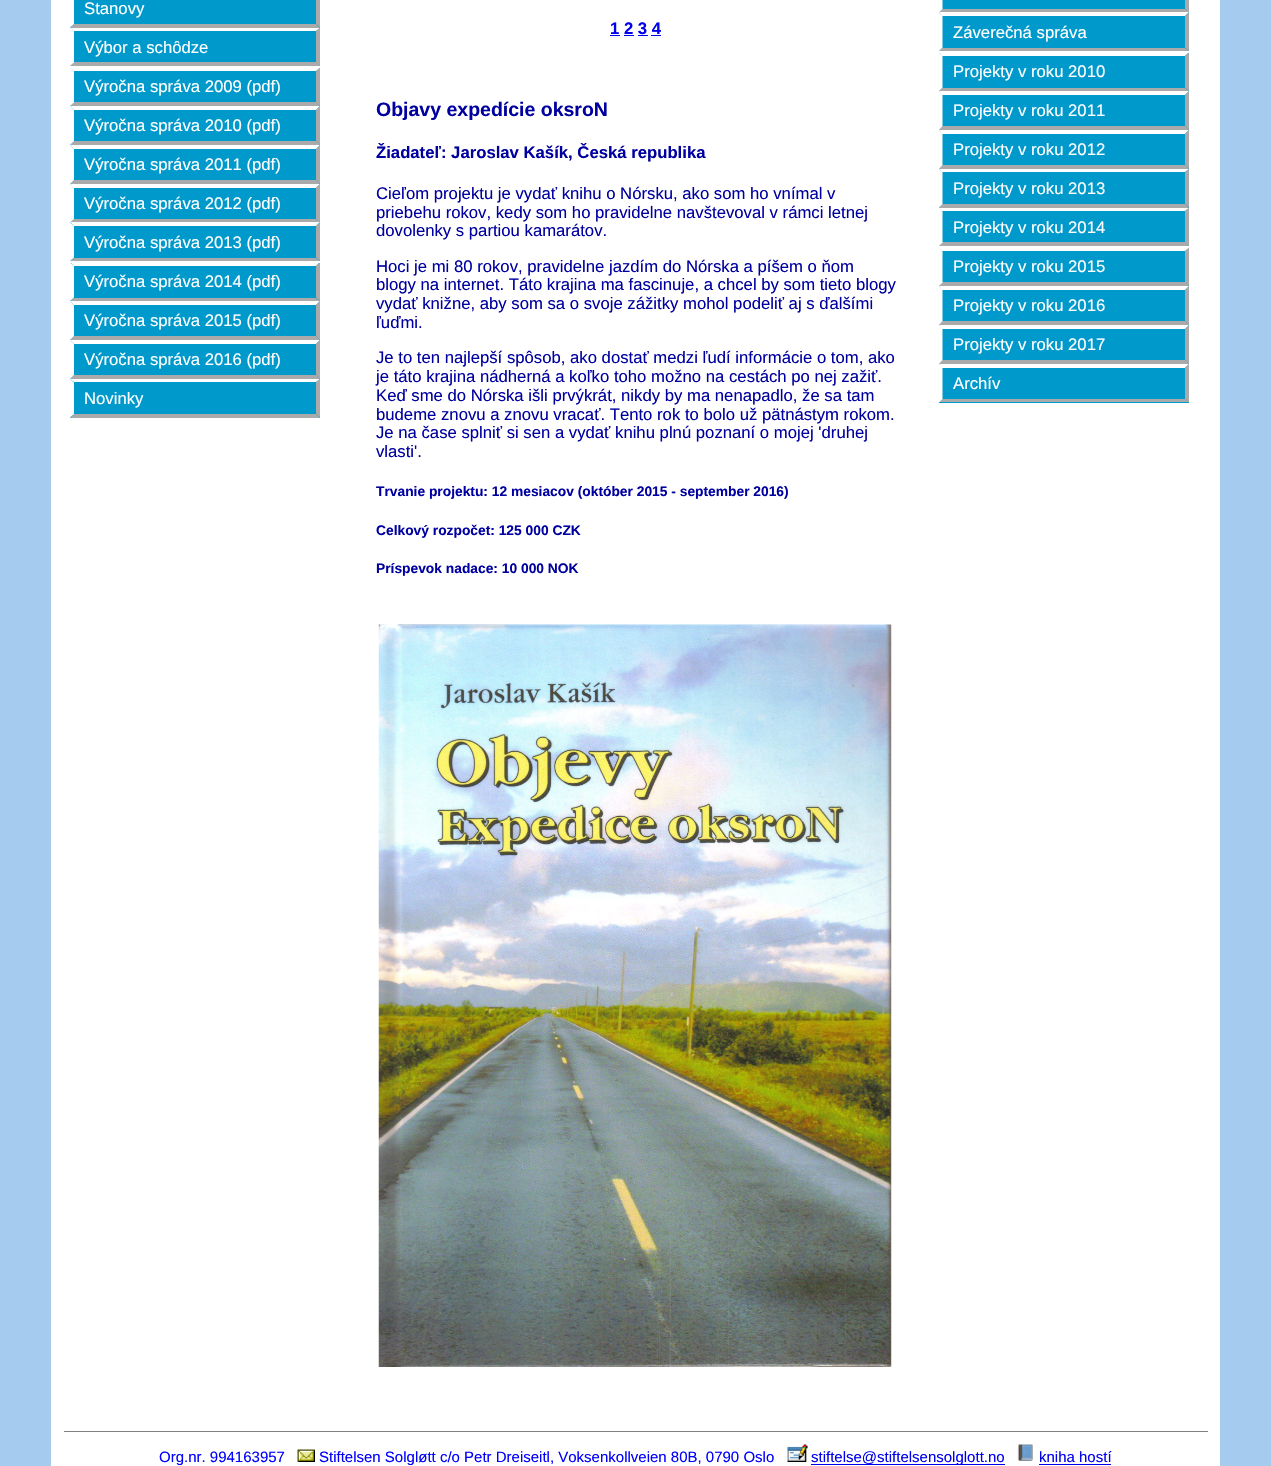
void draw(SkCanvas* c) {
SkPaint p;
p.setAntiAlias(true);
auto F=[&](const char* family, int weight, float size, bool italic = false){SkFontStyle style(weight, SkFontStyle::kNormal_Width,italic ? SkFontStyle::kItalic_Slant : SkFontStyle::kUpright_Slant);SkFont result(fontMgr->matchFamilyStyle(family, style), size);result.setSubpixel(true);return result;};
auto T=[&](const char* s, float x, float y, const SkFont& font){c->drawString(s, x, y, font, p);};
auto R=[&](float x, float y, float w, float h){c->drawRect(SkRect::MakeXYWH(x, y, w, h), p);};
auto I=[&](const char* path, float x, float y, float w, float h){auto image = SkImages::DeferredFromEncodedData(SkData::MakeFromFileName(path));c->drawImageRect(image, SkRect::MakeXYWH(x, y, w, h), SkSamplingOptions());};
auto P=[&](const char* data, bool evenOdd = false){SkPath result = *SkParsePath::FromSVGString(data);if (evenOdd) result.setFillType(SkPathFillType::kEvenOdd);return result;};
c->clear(0xffa5cbef);
p.setColor(0xffffffff);
R(51,0,1169,1466);
p.setColor(0xff0099cc);
R(70,0,250,66);
p.setColor(0xffaaaaaa);
c->drawPath(P("M320-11v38.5l-4-3.5v-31.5z"),p);
c->drawPath(P("M320 28h-250l4-4h242z"),p);
p.setColor(0xffffffff);
c->drawPath(P("M70 27.5v-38.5l4 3.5v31.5z"),p);
auto f1 = F("Liberation Sans",400,16.7);
T("Stanovy",84,14,f1);
c->drawPath(P("M70 28h250l-4 3h-242z"),p);
p.setColor(0xffaaaaaa);
c->drawPath(P("M320 27.5v38.5l-4-3.5v-31.5z"),p);
c->drawPath(P("M320 66h-250l4-4h242z"),p);
p.setColor(0xffffffff);
c->drawPath(P("M70 66v-38.5l4 3.5v31.5z"),p);
T("Výbor a schȏdze",84,53,f1);
p.setColor(0xff0099cc);
R(70,68,250,193);
p.setColor(0xffffffff);
c->drawPath(P("M70 68h250l-4 3h-242z"),p);
p.setColor(0xffaaaaaa);
c->drawPath(P("M320 67.5v38.5l-4-3.5v-31.5z"),p);
c->drawPath(P("M320 106h-250l4-4h242z"),p);
p.setColor(0xffffffff);
c->drawPath(P("M70 106v-38.5l4 3.5v31.5z"),p);
T("Výročna správa 2009 (pdf)",84,92,f1);
c->drawPath(P("M70 106h250l-4 4h-242z"),p);
p.setColor(0xffaaaaaa);
c->drawPath(P("M320 106v39l-4-4v-31z"),p);
c->drawPath(P("M320 145h-250l4-4h242z"),p);
p.setColor(0xffffffff);
c->drawPath(P("M70 145v-39l4 4v31z"),p);
T("Výročna správa 2010 (pdf)",84,131,f1);
c->drawPath(P("M70 145h250l-4 4h-242z"),p);
p.setColor(0xffaaaaaa);
c->drawPath(P("M320 145v39l-4-4v-31z"),p);
c->drawPath(P("M320 184h-250l4-4h242z"),p);
p.setColor(0xffffffff);
c->drawPath(P("M70 184v-39l4 4v31z"),p);
T("Výročna správa 2011 (pdf)",84,170,f1);
c->drawPath(P("M70 184h250l-4 4h-242z"),p);
p.setColor(0xffaaaaaa);
c->drawPath(P("M320 184v38.5l-4-3.5v-31.5z"),p);
c->drawPath(P("M320 222h-250l4-3h242z"),p);
p.setColor(0xffffffff);
c->drawPath(P("M70 222.5v-38.5l4 3.5v31.5z"),p);
T("Výročna správa 2012 (pdf)",84,209,f1);
c->drawPath(P("M70 222h250l-4 4h-242z"),p);
p.setColor(0xffaaaaaa);
c->drawPath(P("M320 222.5v38.5l-4-3.5v-31.5z"),p);
c->drawPath(P("M320 261h-250l4-3h242z"),p);
p.setColor(0xffffffff);
c->drawPath(P("M70 261v-38.5l4 3.5v31.5z"),p);
T("Výročna správa 2013 (pdf)",84,248,f1);
p.setColor(0xff0099cc);
R(70,263,250,155);
p.setColor(0xffffffff);
c->drawPath(P("M70 262h250l-4 4h-242z"),p);
p.setColor(0xffaaaaaa);
c->drawPath(P("M320 262.5v38.5l-4-3.5v-31.5z"),p);
c->drawPath(P("M320 301h-250l4-3h242z"),p);
p.setColor(0xffffffff);
c->drawPath(P("M70 301v-38.5l4 3.5v31.5z"),p);
T("Výročna správa 2014 (pdf)",84,287,f1);
c->drawPath(P("M70 301h250l-4 4h-242z"),p);
p.setColor(0xffaaaaaa);
c->drawPath(P("M320 301v39l-4-4v-31z"),p);
c->drawPath(P("M320 340h-250l4-4h242z"),p);
p.setColor(0xffffffff);
c->drawPath(P("M70 340v-39l4 4v31z"),p);
T("Výročna správa 2015 (pdf)",84,326,f1);
c->drawPath(P("M70 340h250l-4 4h-242z"),p);
p.setColor(0xffaaaaaa);
c->drawPath(P("M320 340v39l-4-4v-31z"),p);
c->drawPath(P("M320 379h-250l4-4h242z"),p);
p.setColor(0xffffffff);
c->drawPath(P("M70 379v-39l4 4v31z"),p);
T("Výročna správa 2016 (pdf)",84,365,f1);
c->drawPath(P("M70 379h250l-4 3h-242z"),p);
p.setColor(0xffaaaaaa);
c->drawPath(P("M320 379v38.5l-4-3.5v-31.5z"),p);
c->drawPath(P("M320 418h-250l4-4h242z"),p);
p.setColor(0xffffffff);
c->drawPath(P("M70 417.5v-38.5l4 3.5v31.5z"),p);
T("Novinky",84,404,f1);
auto f2 = F("Liberation Sans",700,16.7);
p.setColor(0xff0000ee);
T("1 2 3 4",610,34,f2);
R(610,35,10,1);
R(624,35,10,1);
R(638,35,10,1);
R(651,35,10,1);
auto f3 = F("Liberation Sans",700,19.5);
p.setColor(0xff0000a0);
T("Objavy expedície oksroN",376,116,f3);
T("Žiadateľ: Jaroslav Kašík, Česká republika",376,158,f2);
T("Cieľom projektu je vydať knihu o Nórsku, ako som ho vnímal v",376,199,f1);
T("priebehu rokov, kedy som ho pravidelne navštevoval v rámci letnej",376,218,f1);
T("dovolenky s partiou kamarátov.",376,236,f1);
T("Hoci je mi 80 rokov, pravidelne jazdím do Nórska a píšem o ňom",376,272,f1);
T("blogy na internet. Táto krajina ma fascinuje, a chcel by som tieto blogy",376,290,f1);
T("vydať knižne, aby som sa o svoje zážitky mohol podeliť aj s ďalšími",376,309,f1);
T("ľuďmi.",376,328,f1);
T("Je to ten najlepší spôsob, ako dostať medzi ľudí informácie o tom, ako",376,363,f1);
T("je táto krajina nádherná a koľko toho možno na cestách po nej zažiť.",376,382,f1);
T("Keď sme do Nórska išli prvýkrát, nikdy by ma nenapadlo, že sa tam",376,401,f1);
T("budeme znovu a znovu vracať. Tento rok to bolo už pätnástym rokom.",376,420,f1);
T("Je na čase splniť si sen a vydať knihu plnú poznaní o mojej 'druhej",376,438,f1);
T("vlasti'.",376,457,f1);
auto f4 = F("Liberation Sans",700,13.8);
T("Trvanie projektu: 12 mesiacov (október 2015 - september 2016)",376,496,f4);
T("Celkový rozpočet: 125 000 CZK",376,535,f4);
T("Príspevok nadace: 10 000 NOK",376,573,f4);
I("1.png",378,624,514,743);
p.setColor(0xff0099cc);
R(939,0,250,51);
p.setColor(0xffaaaaaa);
c->drawPath(P("M1189-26v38.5l-4-3.5v-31.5z"),p);
c->drawPath(P("M1189 12h-250l3-3h243z"),p);
p.setColor(0xffffffff);
c->drawPath(P("M939 12.5v-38.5l3.5 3.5v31.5z"),p);
c->drawPath(P("M939 12h250l-4 4h-243z"),p);
p.setColor(0xffaaaaaa);
c->drawPath(P("M1189 12.5v38.5l-4-3.5v-31.5z"),p);
c->drawPath(P("M1189 51h-250l3-3h243z"),p);
p.setColor(0xffffffff);
c->drawPath(P("M939 51v-38.5l3.5 3.5v31.5z"),p);
T("Záverečná správa",953,38,f1);
p.setColor(0xff0099cc);
R(939,53,250,193);
p.setColor(0xffffffff);
c->drawPath(P("M939 52h250l-4 4h-243z"),p);
p.setColor(0xffaaaaaa);
c->drawPath(P("M1189 52.5v38.5l-4-3.5v-31.5z"),p);
c->drawPath(P("M1189 91h-250l3-3h243z"),p);
p.setColor(0xffffffff);
c->drawPath(P("M939 91v-38.5l3.5 3.5v31.5z"),p);
T("Projekty v roku 2010",953,77,f1);
c->drawPath(P("M939 91h250l-4 4h-243z"),p);
p.setColor(0xffaaaaaa);
c->drawPath(P("M1189 91v39l-4-4v-31z"),p);
c->drawPath(P("M1189 130h-250l3-4h243z"),p);
p.setColor(0xffffffff);
c->drawPath(P("M939 130v-39l3.5 4v31z"),p);
T("Projekty v roku 2011",953,116,f1);
c->drawPath(P("M939 130h250l-4 4h-243z"),p);
p.setColor(0xffaaaaaa);
c->drawPath(P("M1189 130v39l-4-4v-31z"),p);
c->drawPath(P("M1189 169h-250l3-4h243z"),p);
p.setColor(0xffffffff);
c->drawPath(P("M939 169v-39l3.5 4v31z"),p);
T("Projekty v roku 2012",953,155,f1);
c->drawPath(P("M939 169h250l-4 3h-243z"),p);
p.setColor(0xffaaaaaa);
c->drawPath(P("M1189 169v38.5l-4-3.5v-31.5z"),p);
c->drawPath(P("M1189 208h-250l3-4h243z"),p);
p.setColor(0xffffffff);
c->drawPath(P("M939 207.5v-38.5l3.5 3.5v31.5z"),p);
T("Projekty v roku 2013",953,194,f1);
c->drawPath(P("M939 208h250l-4 3h-243z"),p);
p.setColor(0xffaaaaaa);
c->drawPath(P("M1189 207.5v38.5l-4-3.5v-31.5z"),p);
c->drawPath(P("M1189 246h-250l3-4h243z"),p);
p.setColor(0xffffffff);
c->drawPath(P("M939 246v-38.5l3.5 3.5v31.5z"),p);
T("Projekty v roku 2014",953,233,f1);
p.setColor(0xff0099cc);
R(939,248,250,155);
p.setColor(0xffffffff);
c->drawPath(P("M939 248h250l-4 3h-243z"),p);
p.setColor(0xffaaaaaa);
c->drawPath(P("M1189 247.5v38.5l-4-3.5v-31.5z"),p);
c->drawPath(P("M1189 286h-250l3-4h243z"),p);
p.setColor(0xffffffff);
c->drawPath(P("M939 286v-38.5l3.5 3.5v31.5z"),p);
T("Projekty v roku 2015",953,272,f1);
c->drawPath(P("M939 286h250l-4 4h-243z"),p);
p.setColor(0xffaaaaaa);
c->drawPath(P("M1189 286v39l-4-4v-31z"),p);
c->drawPath(P("M1189 325h-250l3-4h243z"),p);
p.setColor(0xffffffff);
c->drawPath(P("M939 325v-39l3.5 4v31z"),p);
T("Projekty v roku 2016",953,311,f1);
c->drawPath(P("M939 325h250l-4 4h-243z"),p);
p.setColor(0xffaaaaaa);
c->drawPath(P("M1189 325v39l-4-4v-31z"),p);
c->drawPath(P("M1189 364h-250l3-4h243z"),p);
p.setColor(0xffffffff);
c->drawPath(P("M939 364v-39l3.5 4v31z"),p);
T("Projekty v roku 2017",953,350,f1);
c->drawPath(P("M939 364h250l-4 4h-243z"),p);
p.setColor(0xffaaaaaa);
c->drawPath(P("M1189 364v38.5l-4-3.5v-31.5z"),p);
c->drawPath(P("M1189 402h-250l3-3h243z"),p);
p.setColor(0xffffffff);
c->drawPath(P("M939 402.5v-38.5l3.5 3.5v31.5z"),p);
T("Archív",953,389,f1);
p.setColor(0xff808080);
R(64,1431,1144,1);
auto f5 = F("Liberation Sans",400,15);
p.setColor(0xff0000fe);
T("Org.nr. 994163957",159,1462,f5);
I("2.png",297,1449,18,13);
T("Stiftelsen Solgløtt c/o Petr Dreiseitl, Voksenkollveien 80B, 0790 Oslo",319,1462,f5);
I("3.png",787,1444,21,18);
p.setColor(0xff0000ee);
R(811,1464,194,1);
T("stiftelse@stiftelsensolglott.no",811,1462,f5);
I("4.png",1017,1444,16,17);
T("kniha hostí",1039,1462,f5);
R(1039,1464,72,1);
}
